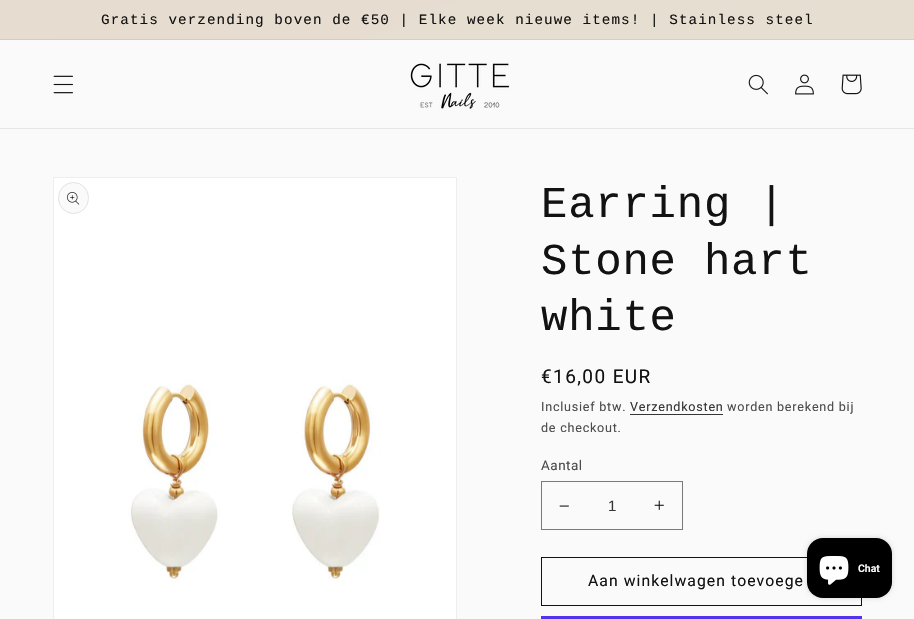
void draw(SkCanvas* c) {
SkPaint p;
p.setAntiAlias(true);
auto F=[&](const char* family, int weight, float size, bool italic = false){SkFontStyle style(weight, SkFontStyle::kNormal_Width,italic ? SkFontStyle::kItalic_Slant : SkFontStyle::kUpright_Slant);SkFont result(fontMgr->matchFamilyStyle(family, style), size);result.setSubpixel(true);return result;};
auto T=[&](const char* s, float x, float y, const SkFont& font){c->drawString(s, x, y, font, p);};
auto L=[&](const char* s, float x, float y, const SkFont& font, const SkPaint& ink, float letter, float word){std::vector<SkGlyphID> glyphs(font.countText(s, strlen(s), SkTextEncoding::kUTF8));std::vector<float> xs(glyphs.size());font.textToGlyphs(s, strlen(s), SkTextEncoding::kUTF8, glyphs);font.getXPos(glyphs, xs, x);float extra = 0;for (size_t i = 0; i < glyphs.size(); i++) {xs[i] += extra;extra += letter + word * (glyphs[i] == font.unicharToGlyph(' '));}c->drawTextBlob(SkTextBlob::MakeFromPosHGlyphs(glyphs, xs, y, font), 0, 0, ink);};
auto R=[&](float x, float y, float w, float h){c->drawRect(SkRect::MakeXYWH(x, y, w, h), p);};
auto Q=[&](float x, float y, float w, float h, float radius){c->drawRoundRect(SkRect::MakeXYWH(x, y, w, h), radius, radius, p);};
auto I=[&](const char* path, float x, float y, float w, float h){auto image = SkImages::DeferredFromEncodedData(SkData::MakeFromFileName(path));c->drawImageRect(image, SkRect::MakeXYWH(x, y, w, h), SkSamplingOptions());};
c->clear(0xfffafafa);
{
const SkColor colors[] = {0xffe6dcd0,0xffe6e0d1,0xffe6e4d2,0xffe6d3d3,0xffe6d4d4,0xffd4bc8c};
const float stops[] = {0,.5,.5,.5,.56,1};
const SkPoint ends[] = {{285,-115}, {629,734}};
p.setShader(SkGradientShader::MakeLinear(ends, colors, stops, 6, SkTileMode::kClamp));
p.setAlpha(255);
}
R(0,0,914,39);
{
const SkColor colors[] = {0xffd5ccc1,0xffd5d0c2,0xffd5d3c3,0xffd5c4c4,0xffd5c4c4,0xffc4ae82};
const float stops[] = {0,.5,.5,.5,.56,1};
const SkPoint ends[] = {{285,-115}, {629,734}};
p.setShader(SkGradientShader::MakeLinear(ends, colors, stops, 6, SkTileMode::kClamp));
p.setAlpha(255);
}
R(0,39,914,1);
auto f1 = F("Liberation Mono",400,14.3);
p.setShader(nullptr);
p.setColor(0xff121212);
L("Gratis verzending boven de €50 | Elke week nieuwe items! | Stainless steel",101,24,f1,p,1.05,0);
p.setColor(0xffe7e7e7);
R(0,128,914,1);
I("1.png",53,75,20,19);
I("2.png",410,63,100,46);
I("3.png",748,74,20,21);
I("4.png",795,74,19,21);
I("5.png",841,74,21,21);
p.setStroke(true);
p.setStrokeWidth(1);
p.setColor(0xffeeeeee);
c->drawRect(SkRect::MakeXYWH(53.5,177.5,403,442),p);
I("6.png",54,178,402,441);
p.setStroke(false);
p.setColor(0xfffafafa);
c->drawRoundRect(SkRect::MakeXYWH(58.5,182.5,30,31),15,15,p);
p.setStroke(true);
p.setColor(0xffe3e3e3);
c->drawRoundRect(SkRect::MakeXYWH(58.5,182.5,30,31),15,15,p);
I("7.png",67,192,13,13);
auto f2 = F("Liberation Mono",400,44);
p.setStroke(false);
p.setColor(0xff121212);
L("Earring |",541,217,f2,p,.75,0);
L("Stone hart",541,274,f2,p,.75,0);
L("white",541,330,f2,p,.75,0);
auto f3 = F("Roboto",400,19);
L("€16,00 EUR",541,383,f3,p,1.4,0);
auto f4 = F("Roboto",400,12.6);
p.setColor(0xff4c4c4c);
L("Inclusief btw.",541,411,f4,p,.75,0);
p.setColor(0xff353535);
L("Verzendkosten",630,411,f4,p,.75,0);
R(630,414,93,1);
p.setColor(0xff4c4c4c);
L("worden berekend bij",727,411,f4,p,.75,0);
L("de checkout.",541,432,f4,p,.75,0);
auto f5 = F("Roboto",400,13.5);
L("Aantal",541,470,f5,p,.5,0);
I("8.png",559,505,10,2);
I("9.png",654,500,10,10);
p.setStroke(true);
p.setColor(0xff7a7a7a);
c->drawRect(SkRect::MakeXYWH(541.5,481.5,141,48),p);
auto f6 = F("Liberation Sans",400,15);
p.setStroke(false);
p.setColor(0xff353535);
T("1",608,511,f6);
p.setStroke(true);
p.setColor(0xff121212);
c->drawRect(SkRect::MakeXYWH(541.5,557.5,320,48),p);
auto f7 = F("Roboto",400,15.75);
p.setStroke(false);
L("Aan winkelwagen toevoege",588,586,f7,p,1.05,0);
p.setColor(0xff5433eb);
R(541,616,321,3);
p.setColor(0x26000000);
p.setMaskFilter(SkMaskFilter::MakeBlur(kNormal_SkBlurStyle, 2.5));
c->drawRoundRect(SkRect::MakeXYWH(807,538,85,60),16,16,p);
p.setMaskFilter(nullptr);
p.setColor(0xff000000);
Q(807,538,85,60,16);
I("10.png",819,556,30,29);
auto f8 = F("Roboto",600,10.5);
p.setColor(0xffffffff);
T("Chat",858,572,f8);
}
